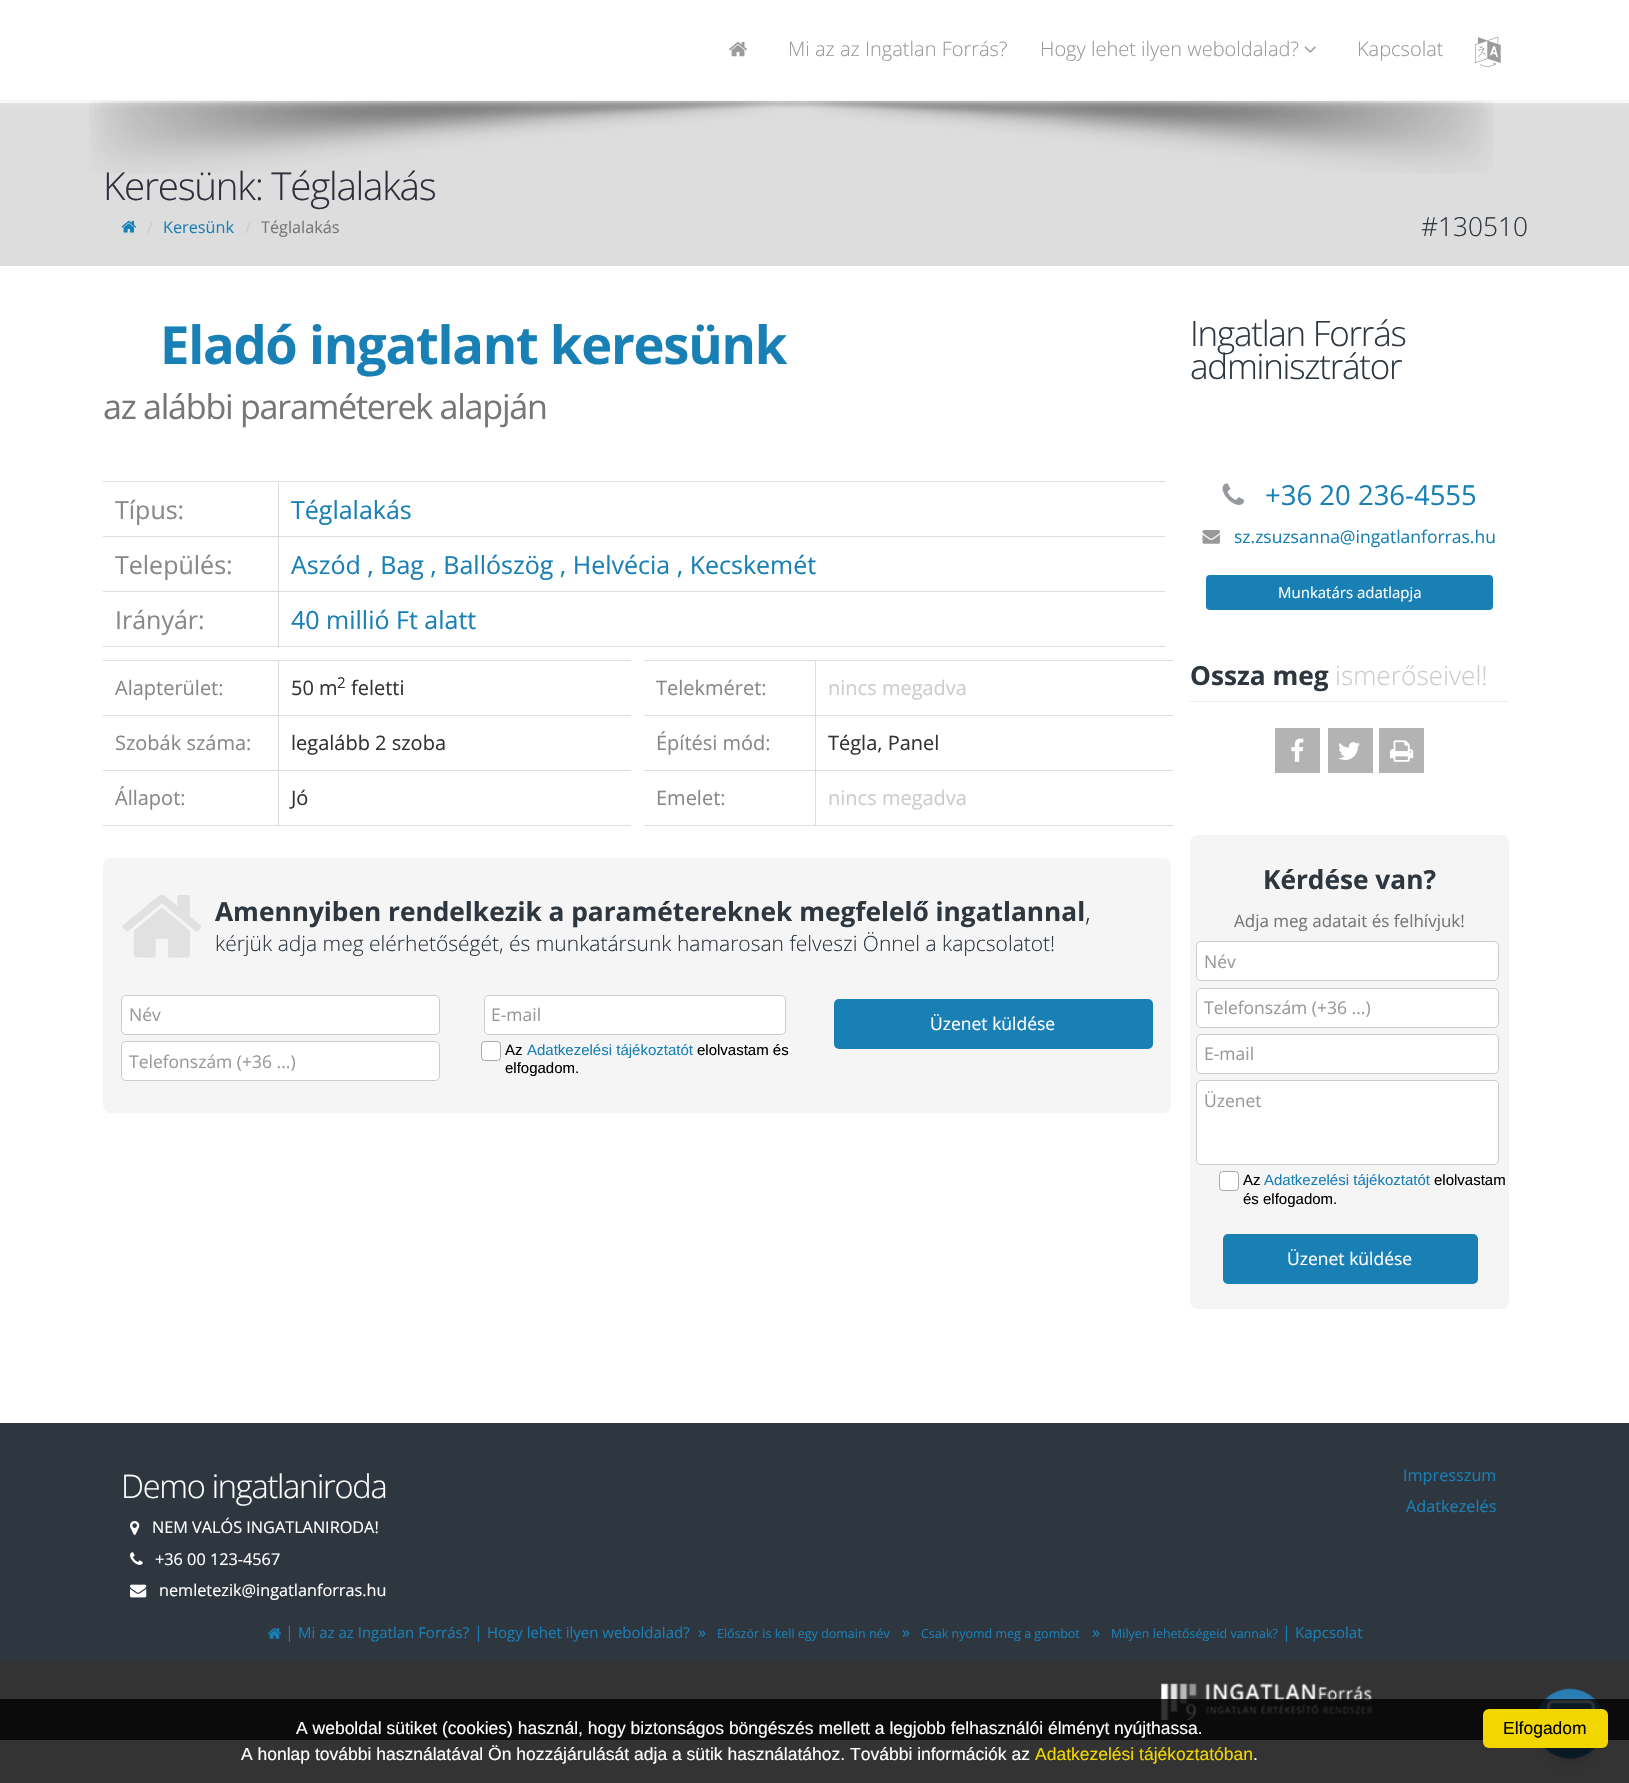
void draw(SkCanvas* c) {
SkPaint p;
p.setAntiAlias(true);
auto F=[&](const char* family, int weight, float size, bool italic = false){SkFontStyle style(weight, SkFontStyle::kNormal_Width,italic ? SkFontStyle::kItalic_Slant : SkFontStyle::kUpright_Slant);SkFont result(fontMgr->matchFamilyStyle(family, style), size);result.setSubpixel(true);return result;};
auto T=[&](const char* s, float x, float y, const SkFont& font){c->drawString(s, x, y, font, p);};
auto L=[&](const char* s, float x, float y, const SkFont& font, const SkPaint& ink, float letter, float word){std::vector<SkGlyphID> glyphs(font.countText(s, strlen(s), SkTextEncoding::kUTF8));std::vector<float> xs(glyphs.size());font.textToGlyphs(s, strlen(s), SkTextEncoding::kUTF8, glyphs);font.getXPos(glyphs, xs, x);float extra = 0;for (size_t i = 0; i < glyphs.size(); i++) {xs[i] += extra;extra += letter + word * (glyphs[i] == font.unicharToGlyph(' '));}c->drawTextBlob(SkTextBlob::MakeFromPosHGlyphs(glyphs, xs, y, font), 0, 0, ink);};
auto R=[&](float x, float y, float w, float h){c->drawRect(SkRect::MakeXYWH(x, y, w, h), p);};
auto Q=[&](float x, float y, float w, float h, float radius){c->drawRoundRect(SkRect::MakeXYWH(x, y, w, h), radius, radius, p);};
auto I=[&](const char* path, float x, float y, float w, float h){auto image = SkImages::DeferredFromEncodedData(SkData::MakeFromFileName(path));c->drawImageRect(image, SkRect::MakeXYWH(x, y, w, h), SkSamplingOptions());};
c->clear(0xffffffff);
p.setColor(0xffdddddd);
R(0,103,1629,163);
auto f1 = F("Open Sans",300,38.5);
p.setColor(0xff2d2f3c);
L("Keresünk: Téglalakás",103,200,f1,p,-1.25,0);
I("4.png",89,101,1405,72);
p.setColor(0xffeeeeee);
p.setMaskFilter(SkMaskFilter::MakeBlur(kNormal_SkBlurStyle, 5));
c->drawRect(SkRect::MakeXYWH(0,0,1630,101),p);
p.setMaskFilter(nullptr);
p.setColor(0xffffffff);
R(0,0,1629,100);
p.setColor(0xfff4f5f7);
R(0,100,1629,1);
I("1.png",729,41,18,16);
auto f2 = F("Open Sans",300,20);
p.setColor(0xff999999);
T("Mi az az Ingatlan Forrás?",788,56,f2);
T("Hogy lehet ilyen weboldalad?",1040,56,f2);
I("2.png",1304,46,12,7);
T("Kapcsolat",1357,56,f2);
I("3.png",1475,36,26,31);
I("5.png",121,220,16,13);
auto f3 = F("Open Sans",400,16.25);
p.setColor(0xffcccccc);
T("/",147,233,f3);
p.setColor(0xff1980b6);
T("Keresünk",163,233,f3);
p.setColor(0xffcccccc);
T("/",245,233,f3);
p.setColor(0xff777777);
T("Téglalakás",261,233,f3);
auto f4 = F("Open Sans",300,26.25);
p.setColor(0xff2e363f);
T("#130510",1421,236,f4);
auto f5 = F("Open Sans",700,52.5);
p.setColor(0xff1980b6);
L("Eladó ingatlant keresünk",160,364,f5,p,-1.25,0);
auto f6 = F("Open Sans",400,34.1);
p.setColor(0xff777777);
L("az alábbi paraméterek alapján",103,419,f6,p,-1.25,0);
p.setColor(0xffdddddd);
R(103,481,1066,1);
R(103,536,1066,1);
R(103,591,1066,1);
R(278,646,891,1);
p.setColor(0xffffffff);
R(1165,481,4,167);
p.setColor(0xffdddddd);
R(278,591,1,57);
R(278,536,1,57);
R(278,481,1,57);
auto f7 = F("Open Sans",400,25);
p.setColor(0xff888888);
T("Típus:",115,519,f7);
p.setColor(0xff1980b6);
T("Téglalakás",291,519,f7);
p.setColor(0xff888888);
T("Település:",115,574,f7);
p.setColor(0xff1980b6);
T("Aszód , Bag , Ballószög , Helvécia , Kecskemét",291,574,f7);
p.setColor(0xffdddddd);
R(103,646,176,1);
p.setColor(0xff888888);
T("Irányár:",115,629,f7);
p.setColor(0xff1980b6);
T("40 millió Ft alatt",291,629,f7);
p.setColor(0xffdddddd);
R(103,660,532,1);
R(103,715,532,1);
R(103,770,532,1);
R(278,825,357,1);
p.setColor(0xffffffff);
R(631,660,4,166);
p.setColor(0xffdddddd);
R(278,770,1,56);
R(278,715,1,56);
R(278,660,1,56);
auto f8 = F("Open Sans",400,20);
p.setColor(0xff888888);
T("Alapterület:",115,695,f8);
p.setColor(0xff333333);
T("50 m",291,695,f8);
auto f9 = F("Open Sans",400,15);
T("2",337,688,f9);
T("feletti",351,695,f8);
p.setColor(0xff888888);
T("Szobák száma:",115,750,f8);
p.setColor(0xff333333);
T("legalább 2 szoba",291,750,f8);
p.setColor(0xffdddddd);
R(103,825,176,1);
p.setColor(0xff888888);
T("Állapot:",115,805,f8);
p.setColor(0xff333333);
T("Jó",291,805,f8);
p.setColor(0xffdddddd);
R(640,660,533,1);
R(640,715,533,1);
R(640,770,533,1);
R(815,825,358,1);
R(815,770,1,56);
R(640,825,176,1);
p.setColor(0xffffffff);
R(640,660,4,166);
p.setColor(0xffdddddd);
R(815,715,1,56);
R(815,660,1,56);
p.setColor(0xff888888);
T("Telekméret:",656,695,f8);
p.setColor(0xffcccccc);
T("nincs megadva",828,695,f8);
p.setColor(0xff888888);
T("Építési mód:",656,750,f8);
p.setColor(0xff333333);
T("Tégla, Panel",828,750,f8);
p.setColor(0xff888888);
T("Emelet:",656,805,f8);
p.setColor(0xffcccccc);
T("nincs megadva",828,805,f8);
p.setColor(0xfff5f5f5);
Q(103,858,1068,255,8);
I("6.png",122,895,79,63);
auto f10 = F("Open Sans",700,26.25);
p.setColor(0xff2e363f);
T("Amennyiben rendelkezik a paramétereknek megfelelő ingatlannal",215,921,f10);
T(",",1085,921,f4);
auto f11 = F("Open Sans",300,21);
T("kérjük adja meg elérhetőségét, és munkatársunk hamarosan felveszi Önnel a kapcsolatot!",215,951,f11);
p.setColor(0xffffffff);
c->drawRoundRect(SkRect::MakeXYWH(121.5,995.5,318,39),4.5,4.5,p);
p.setStroke(true);
p.setStrokeWidth(1);
p.setColor(0xffcccccc);
c->drawRoundRect(SkRect::MakeXYWH(121.5,995.5,318,39),4.5,4.5,p);
auto f12 = F("Open Sans",400,17.5);
p.setStroke(false);
p.setColor(0xff999999);
T("Név",129,1021,f12);
p.setColor(0xffffffff);
c->drawRoundRect(SkRect::MakeXYWH(121.5,1041.5,318,39),4.5,4.5,p);
p.setStroke(true);
p.setColor(0xffcccccc);
c->drawRoundRect(SkRect::MakeXYWH(121.5,1041.5,318,39),4.5,4.5,p);
p.setStroke(false);
p.setColor(0xff999999);
T("Telefonszám (+36 ...)",129,1068,f12);
p.setColor(0xffffffff);
c->drawRoundRect(SkRect::MakeXYWH(484.5,995.5,301,39),4.5,4.5,p);
p.setStroke(true);
p.setColor(0xffcccccc);
c->drawRoundRect(SkRect::MakeXYWH(484.5,995.5,301,39),4.5,4.5,p);
p.setStroke(false);
p.setColor(0xff999999);
T("E-mail",491,1021,f12);
p.setColor(0xffffffff);
c->drawRoundRect(SkRect::MakeXYWH(481.5,1041.5,19,19),3.5,3.5,p);
p.setStroke(true);
p.setColor(0xffaaaaaa);
c->drawRoundRect(SkRect::MakeXYWH(481.5,1041.5,19,19),3.5,3.5,p);
auto f13 = F("Liberation Sans",400,15);
p.setStroke(false);
p.setColor(0xff000000);
T("Az",505,1055,f13);
p.setColor(0xff1980b6);
T("Adatkezelési tájékoztatót",527,1055,f13);
p.setColor(0xff000000);
T("elolvastam és",697,1055,f13);
T("elfogadom.",505,1073,f13);
p.setColor(0xff1980b6);
Q(834,999,319,50,5);
p.setColor(0xffffffff);
T("Üzenet küldése",930,1030,f12);
auto f14 = F("Open Sans",300,35);
p.setColor(0xff2e363f);
L("Ingatlan Forrás",1190,346,f14,p,-1.25,0);
L("adminisztrátor",1190,379,f14,p,-1.25,0);
I("7.png",1222,483,23,22);
auto f15 = F("Open Sans",400,27.5);
p.setColor(0xff1980b6);
T("+36 20 236-4555",1265,505,f15);
I("8.png",1202,530,18,14);
T("sz.zsuzsanna@ingatlanforras.hu",1234,543,f12);
Q(1206,575,287,35,4);
p.setColor(0xffffffff);
T("Munkatárs adatlapja",1278,598,f9);
p.setColor(0xffeeeeee);
R(1190,701,319,1);
p.setColor(0xff2e363f);
T("Ossza meg",1190,685,f10);
p.setColor(0xffcccccc);
T("ismerőseivel!",1335,685,f4);
p.setColor(0xffb3b3b3);
R(1275,728,45,45);
I("9.png",1291,738,13,24);
R(1328,728,45,45);
I("10.png",1338,742,22,18);
R(1379,728,45,45);
I("11.png",1390,740,24,22);
p.setColor(0xfff5f5f5);
Q(1190,835,319,474,8);
p.setColor(0xff2e363f);
T("Kérdése van?",1263,889,f10);
auto f16 = F("Open Sans",400,17);
p.setColor(0xff777777);
T("Adja meg adatait és felhívjuk!",1234,927,f16);
p.setColor(0xffffffff);
c->drawRoundRect(SkRect::MakeXYWH(1196.5,941.5,302,39),4.5,4.5,p);
p.setStroke(true);
p.setColor(0xffcccccc);
c->drawRoundRect(SkRect::MakeXYWH(1196.5,941.5,302,39),4.5,4.5,p);
p.setStroke(false);
p.setColor(0xff999999);
T("Név",1204,968,f12);
p.setColor(0xffffffff);
c->drawRoundRect(SkRect::MakeXYWH(1196.5,988.5,302,39),4.5,4.5,p);
p.setStroke(true);
p.setColor(0xffcccccc);
c->drawRoundRect(SkRect::MakeXYWH(1196.5,988.5,302,39),4.5,4.5,p);
p.setStroke(false);
p.setColor(0xff999999);
T("Telefonszám (+36 ...)",1204,1014,f12);
p.setColor(0xffffffff);
c->drawRoundRect(SkRect::MakeXYWH(1196.5,1034.5,302,39),4.5,4.5,p);
p.setStroke(true);
p.setColor(0xffcccccc);
c->drawRoundRect(SkRect::MakeXYWH(1196.5,1034.5,302,39),4.5,4.5,p);
p.setStroke(false);
p.setColor(0xff999999);
T("E-mail",1204,1060,f12);
p.setColor(0xffffffff);
c->drawRoundRect(SkRect::MakeXYWH(1196.5,1080.5,302,84),4.5,4.5,p);
p.setStroke(true);
p.setColor(0xffcccccc);
c->drawRoundRect(SkRect::MakeXYWH(1196.5,1080.5,302,84),4.5,4.5,p);
p.setStroke(false);
p.setColor(0xff999999);
T("Üzenet",1204,1107,f12);
p.setColor(0xffffffff);
c->drawRoundRect(SkRect::MakeXYWH(1219.5,1171.5,19,19),3.5,3.5,p);
p.setStroke(true);
p.setColor(0xffaaaaaa);
c->drawRoundRect(SkRect::MakeXYWH(1219.5,1171.5,19,19),3.5,3.5,p);
p.setStroke(false);
p.setColor(0xff000000);
T("Az",1243,1185,f13);
p.setColor(0xff1980b6);
T("Adatkezelési tájékoztatót",1264,1185,f13);
p.setColor(0xff000000);
T("elolvastam",1434,1185,f13);
T("és elfogadom.",1243,1204,f13);
p.setColor(0xff1980b6);
Q(1223,1234,255,50,5);
p.setColor(0xffffffff);
T("Üzenet küldése",1287,1265,f12);
p.setColor(0xff2e363f);
R(0,1423,1629,238);
auto f17 = F("Open Sans",300,32.5);
p.setColor(0xffffffff);
L("Demo ingatlaniroda",121,1498,f17,p,-1.25,0);
I("12.png",130,1521,10,14);
T("NEM VALÓS INGATLANIRODA!",152,1533,f3);
I("13.png",130,1552,13,13);
T("+36 00 123-4567",155,1565,f3);
I("14.png",130,1584,17,14);
T("nemletezik@ingatlanforras.hu",159,1596,f3);
p.setColor(0xff1980b6);
T("Impresszum",1403,1481,f3);
T("Adatkezelés",1406,1512,f3);
I("15.png",267,1628,15,11);
T("|",285,1638,f3);
T("Mi az az Ingatlan Forrás?",298,1638,f9);
T("|",474,1638,f3);
T("Hogy lehet ilyen weboldalad?",487,1638,f9);
T("»",698,1638,f3);
auto f18 = F("Open Sans",400,12.5);
T("Először is kell egy domain név",717,1638,f18);
T("»",902,1638,f3);
T("Csak nyomd meg a gombot",921,1638,f18);
T("»",1092,1638,f3);
T("Milyen lehetőségeid vannak?",1111,1638,f18);
T("|",1282,1638,f3);
T("Kapcsolat",1295,1638,f9);
p.setColor(0xff333333);
R(0,1661,1629,79);
I("16.png",1161,1683,212,37);
I("17.png",1535,1688,70,84);
p.setColor(0xcc000000);
R(0,1699,1629,84);
auto f19 = F("Liberation Sans",400,17.5);
p.setColor(0xffffffff);
T("A weboldal sütiket (cookies) használ, hogy biztonságos böngészés mellett a legjobb felhasználói élményt nyújthassa.",296,1734,f19);
T("A honlap további használatával Ön hozzájárulását adja a sütik használatához. További információk az",241,1760,f19);
p.setColor(0xfff1d600);
T("Adatkezelési tájékoztatóban",1035,1760,f19);
p.setColor(0xffffffff);
T(".",1253,1760,f19);
p.setColor(0xfff1d600);
Q(1483,1709,125,39,6);
p.setColor(0xff000000);
T("Elfogadom",1503,1734,f19);
}
